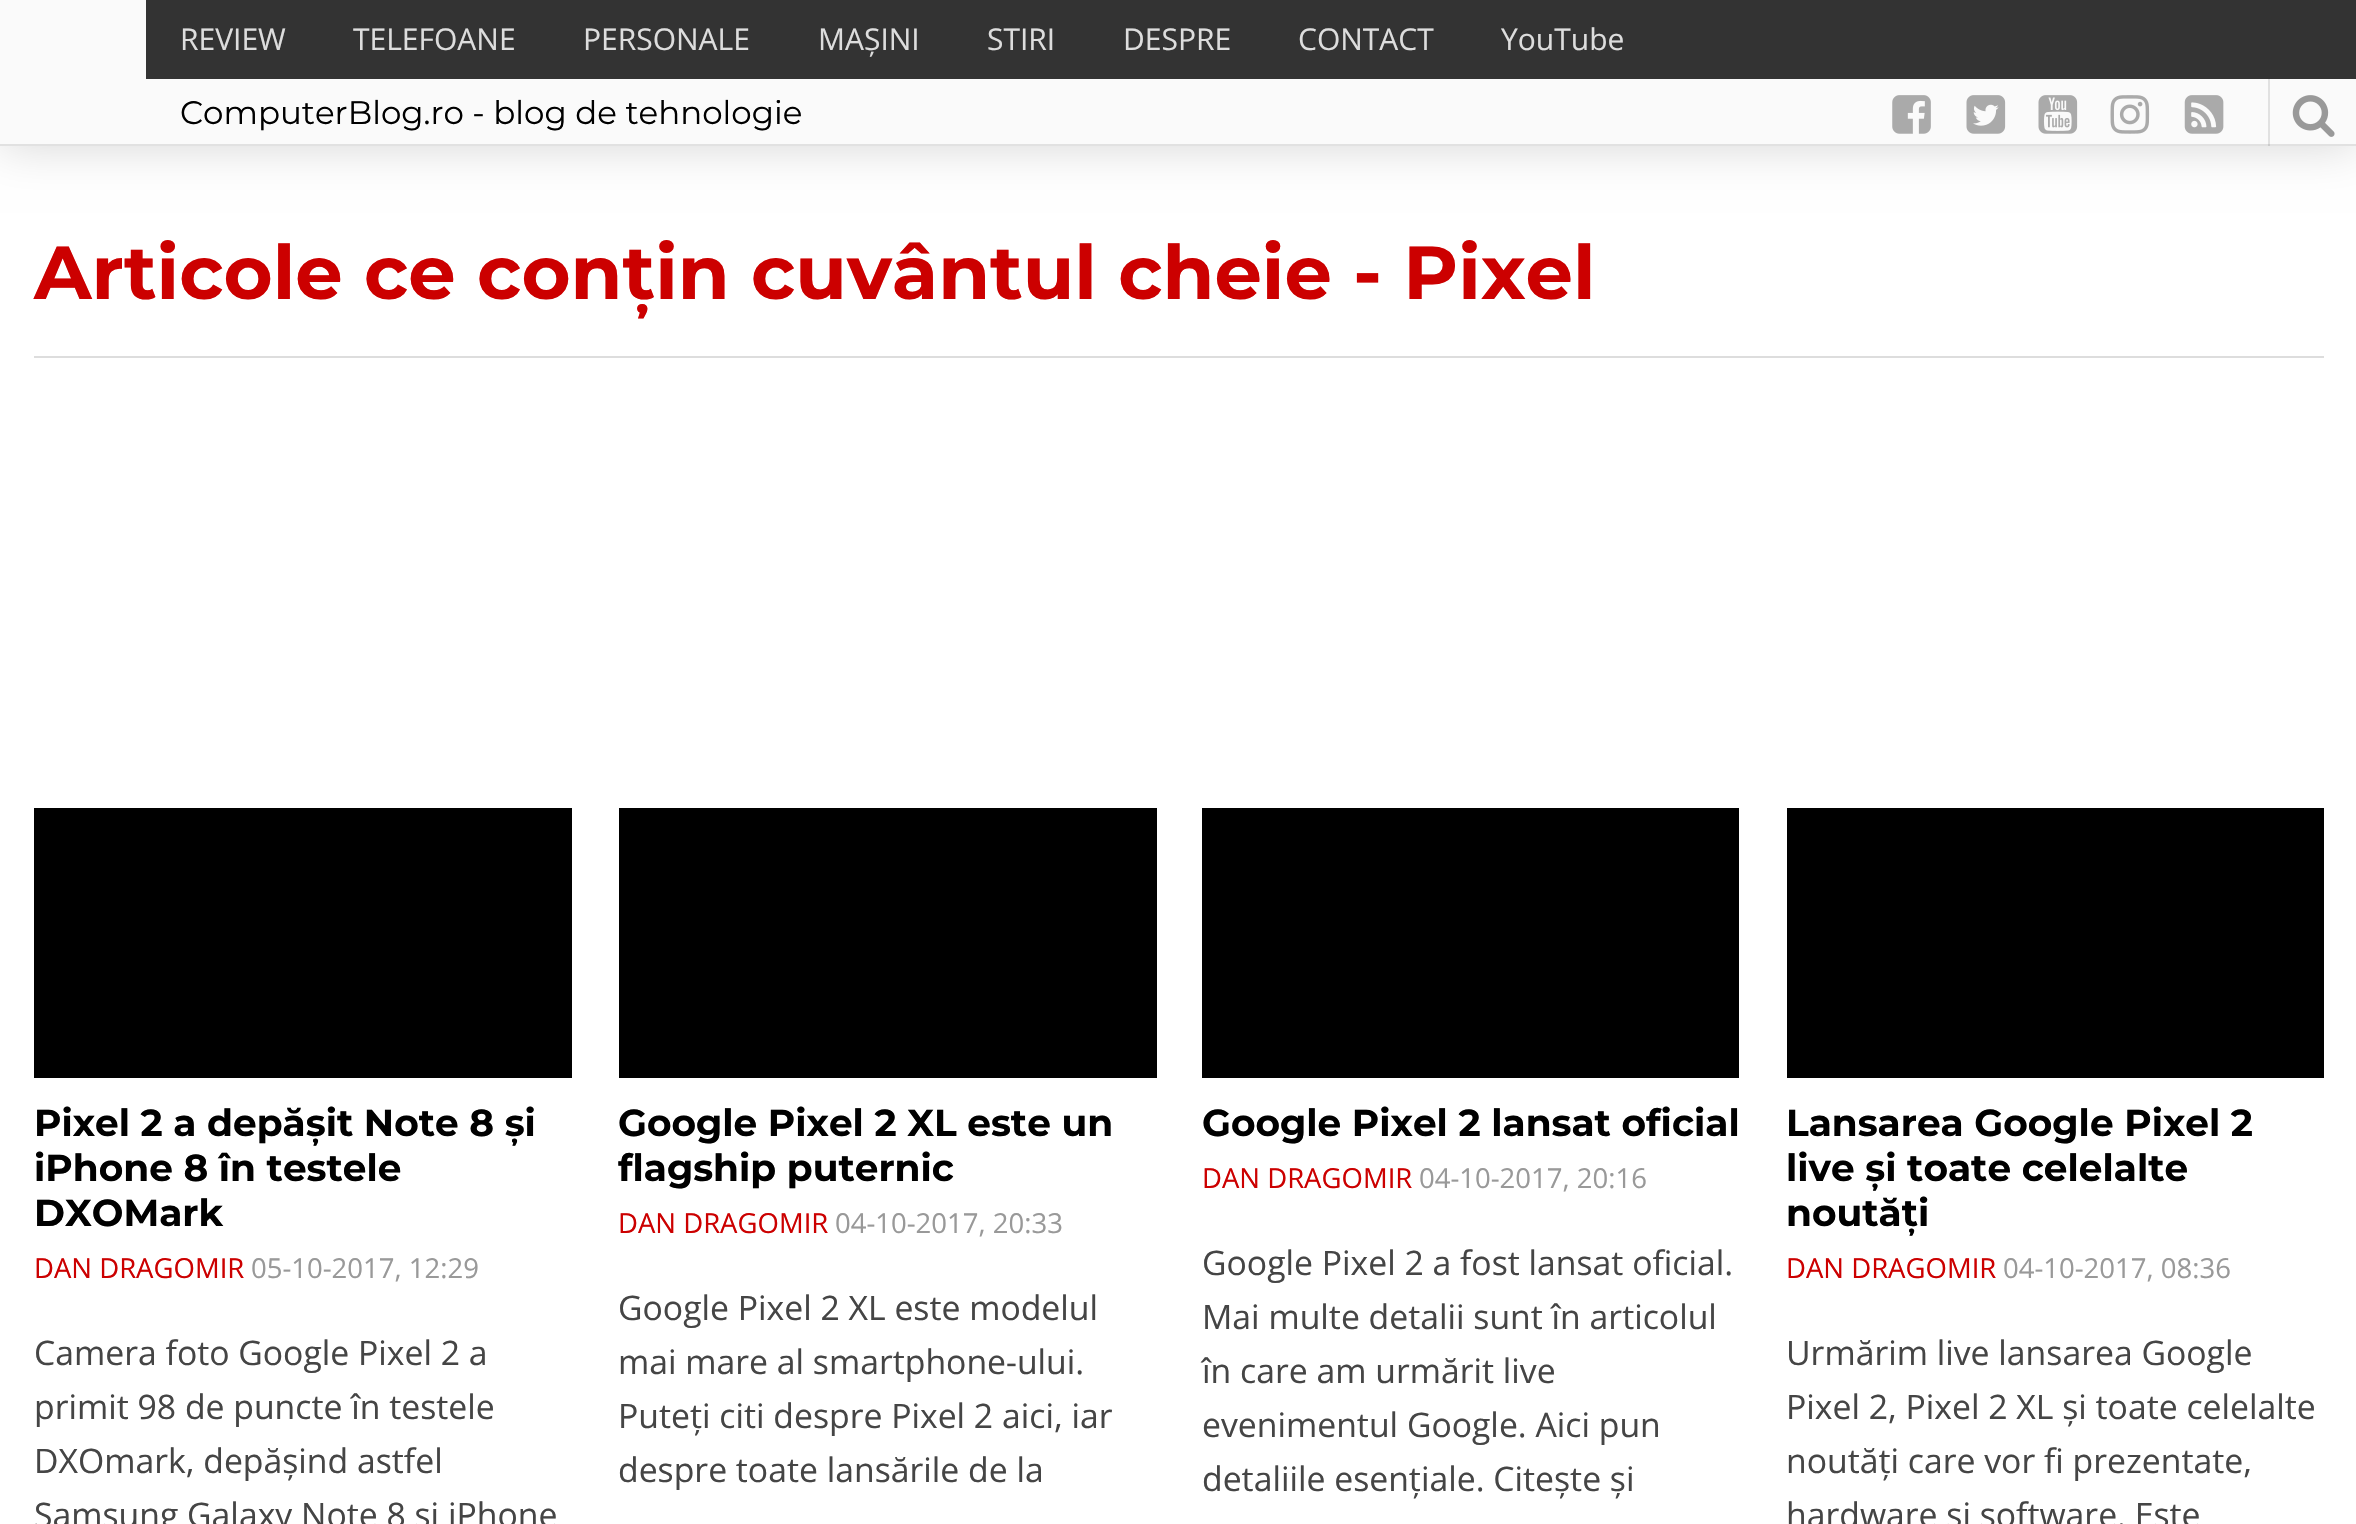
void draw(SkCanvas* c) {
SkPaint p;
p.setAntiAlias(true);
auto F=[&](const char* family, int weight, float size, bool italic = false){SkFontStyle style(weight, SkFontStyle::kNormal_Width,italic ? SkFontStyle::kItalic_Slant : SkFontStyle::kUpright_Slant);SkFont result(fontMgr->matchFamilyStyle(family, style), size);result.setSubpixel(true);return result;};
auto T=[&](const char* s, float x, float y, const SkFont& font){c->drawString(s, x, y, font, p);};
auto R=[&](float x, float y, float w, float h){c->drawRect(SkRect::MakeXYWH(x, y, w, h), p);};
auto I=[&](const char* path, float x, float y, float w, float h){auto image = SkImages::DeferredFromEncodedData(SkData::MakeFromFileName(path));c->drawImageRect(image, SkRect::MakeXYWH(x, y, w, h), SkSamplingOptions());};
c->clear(0xffffffff);
p.setColor(0x29000000);
p.setMaskFilter(SkMaskFilter::MakeBlur(kNormal_SkBlurStyle, 22.5));
c->drawRect(SkRect::MakeXYWH(0,0,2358,146),p);
p.setMaskFilter(nullptr);
p.setColor(0xfffafafa);
R(0,0,2356,144);
p.setColor(0xffe1e1e1);
R(2268,79,2,67);
R(0,144,2356,2);
p.setColor(0xffcbcbcb);
R(2268,144,2,2);
p.setColor(0xff333333);
R(146,0,2210,79);
auto f1 = F("Open Sans",400,30);
p.setColor(0xffdddddd);
T("REVIEW",180,50,f1);
T("TELEFOANE",353,50,f1);
T("PERSONALE",583,50,f1);
T("MAȘINI",818,50,f1);
T("STIRI",987,50,f1);
T("DESPRE",1123,50,f1);
T("CONTACT",1298,50,f1);
T("YouTube",1501,50,f1);
auto f2 = F("Montserrat",400,32.5);
p.setColor(0xff000000);
T("ComputerBlog.ro - blog de tehnologie",180,124,f2);
I("1.png",1892,95,39,39);
I("2.png",1966,95,40,39);
I("3.png",2038,95,40,39);
I("4.png",2110,95,40,39);
I("5.png",2184,95,40,39);
I("6.png",2292,95,43,42);
p.setColor(0xffdddddd);
R(34,356,2290,2);
auto f3 = F("Montserrat",700,75.1);
p.setColor(0xffcc0000);
T("Articole ce conțin cuvântul cheie - Pixel",34,299,f3);
p.setColor(0xff000000);
R(34,808,538,270);
auto f4 = F("Montserrat",700,37.5);
T("Pixel 2 a depășit Note 8 și",34,1136,f4);
T("iPhone 8 în testele",34,1181,f4);
T("DXOMark",34,1226,f4);
auto f5 = F("Open Sans",400,27.5);
p.setColor(0xffcc0000);
T("DAN DRAGOMIR",34,1278,f5);
p.setColor(0xff999999);
T("05-10-2017, 12:29",251,1278,f5);
auto f6 = F("Open Sans",400,33.75);
p.setColor(0xff454545);
T("Camera foto Google Pixel 2 a",34,1365,f6);
T("primit 98 de puncte în testele",34,1419,f6);
T("DXOmark, depășind astfel",34,1473,f6);
T("Samsung Galaxy Note 8 și iPhone",34,1527,f6);
p.setColor(0xff000000);
R(619,808,538,270);
T("Google Pixel 2 XL este un",618,1136,f4);
T("flagship puternic",618,1181,f4);
p.setColor(0xffcc0000);
T("DAN DRAGOMIR",618,1233,f5);
p.setColor(0xff999999);
T("04-10-2017, 20:33",835,1233,f5);
p.setColor(0xff454545);
T("Google Pixel 2 XL este modelul",618,1320,f6);
T("mai mare al smartphone-ului.",618,1374,f6);
T("Puteți citi despre Pixel 2 aici, iar",618,1428,f6);
T("despre toate lansările de la",618,1482,f6);
p.setColor(0xff000000);
R(1202,808,537,270);
T("Google Pixel 2 lansat oficial",1202,1136,f4);
p.setColor(0xffcc0000);
T("DAN DRAGOMIR",1202,1188,f5);
p.setColor(0xff999999);
T("04-10-2017, 20:16",1419,1188,f5);
p.setColor(0xff454545);
T("Google Pixel 2 a fost lansat oficial.",1202,1275,f6);
T("Mai multe detalii sunt în articolul",1202,1329,f6);
T("în care am urmărit live",1202,1383,f6);
T("evenimentul Google. Aici pun",1202,1437,f6);
T("detaliile esențiale. Citește și",1202,1491,f6);
p.setColor(0xff000000);
R(1787,808,537,270);
T("Lansarea Google Pixel 2",1786,1136,f4);
T("live și toate celelalte",1786,1181,f4);
T("noutăți",1786,1226,f4);
p.setColor(0xffcc0000);
T("DAN DRAGOMIR",1786,1278,f5);
p.setColor(0xff999999);
T("04-10-2017, 08:36",2003,1278,f5);
p.setColor(0xff454545);
T("Urmărim live lansarea Google",1786,1365,f6);
T("Pixel 2, Pixel 2 XL și toate celelalte",1786,1419,f6);
T("noutăți care vor fi prezentate,",1786,1473,f6);
T("hardware și software. Este",1786,1527,f6);
}
